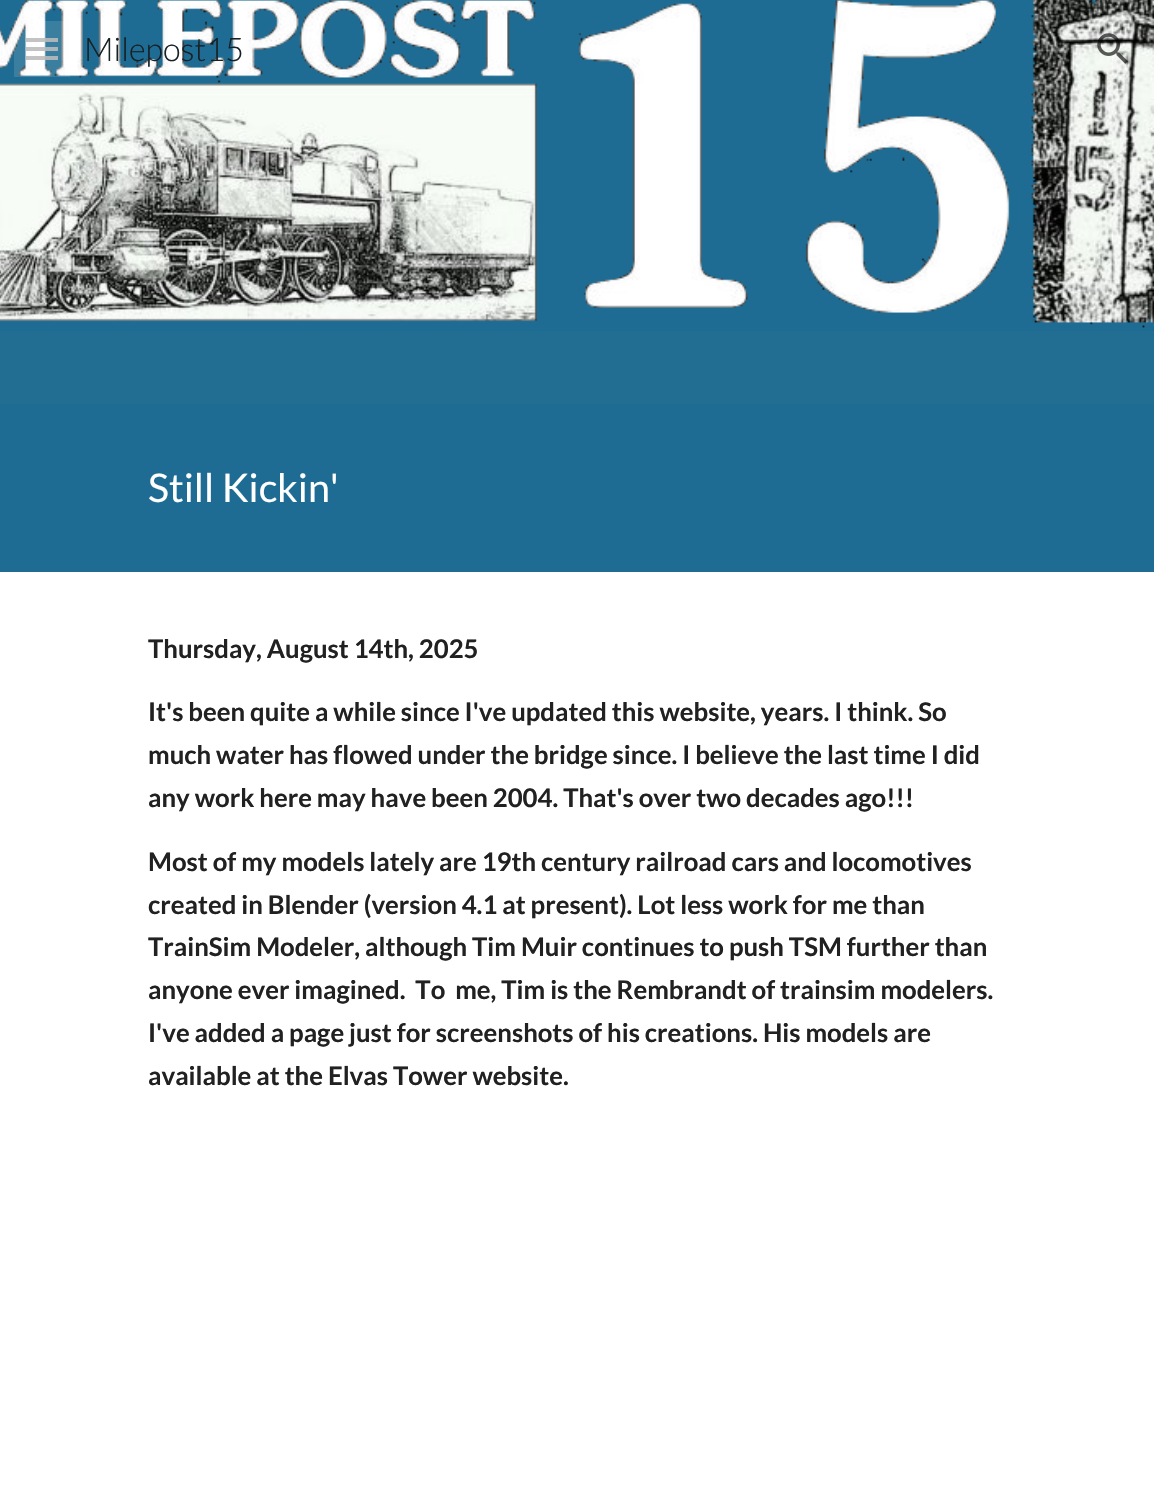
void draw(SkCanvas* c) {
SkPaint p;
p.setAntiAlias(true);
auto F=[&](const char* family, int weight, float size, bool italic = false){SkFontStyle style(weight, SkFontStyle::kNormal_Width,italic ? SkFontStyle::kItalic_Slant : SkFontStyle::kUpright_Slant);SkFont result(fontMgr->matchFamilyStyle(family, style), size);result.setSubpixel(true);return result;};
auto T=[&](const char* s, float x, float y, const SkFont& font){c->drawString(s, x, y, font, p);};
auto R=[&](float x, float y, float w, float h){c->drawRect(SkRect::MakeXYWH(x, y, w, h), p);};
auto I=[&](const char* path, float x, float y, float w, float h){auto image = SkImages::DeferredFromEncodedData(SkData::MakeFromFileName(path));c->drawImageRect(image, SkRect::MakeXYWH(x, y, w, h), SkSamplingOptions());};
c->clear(0xffffffff);
I("2.png",0,0,1154,331);
p.setColor(0xe0b2b2b2);
R(26,38,32,4);
R(26,47,32,4);
R(26,56,32,4);
p.setColor(0x1fffffff);
R(14,21,56,56);
auto f1 = F("Lato",300,32.5);
p.setColor(0xff172025);
T("Milepost15",84,61,f1);
I("1.png",1097,33,31,31);
p.setColor(0xff226e93);
R(0,331,1154,73);
p.setColor(0xff1e6c93);
R(0,404,1154,168);
auto f2 = F("Lato",400,39.5);
p.setColor(0xffffffff);
T("Still Kickin'",148,502,f2);
auto f3 = F("Lato",700,25.7);
p.setColor(0xff212121);
T("Thursday, August 14th, 2025",148,658,f3);
T("It's been quite a while since I've updated this website, years. I think. So",148,721,f3);
T("much water has flowed under the bridge since. I believe the last time I did",148,764,f3);
T("any work here may have been 2004. That's over two decades ago!!!",148,807,f3);
T("Most of my models lately are 19th century railroad cars and locomotives",148,871,f3);
T("created in Blender (version 4.1 at present). Lot less work for me than",148,914,f3);
T("TrainSim Modeler, although Tim Muir continues to push TSM further than",148,956,f3);
T("anyone ever imagined.  To  me, Tim is the Rembrandt of trainsim modelers.",148,999,f3);
T("I've added a page just for screenshots of his creations. His models are",148,1042,f3);
T("available at the Elvas Tower website.",148,1085,f3);
}
